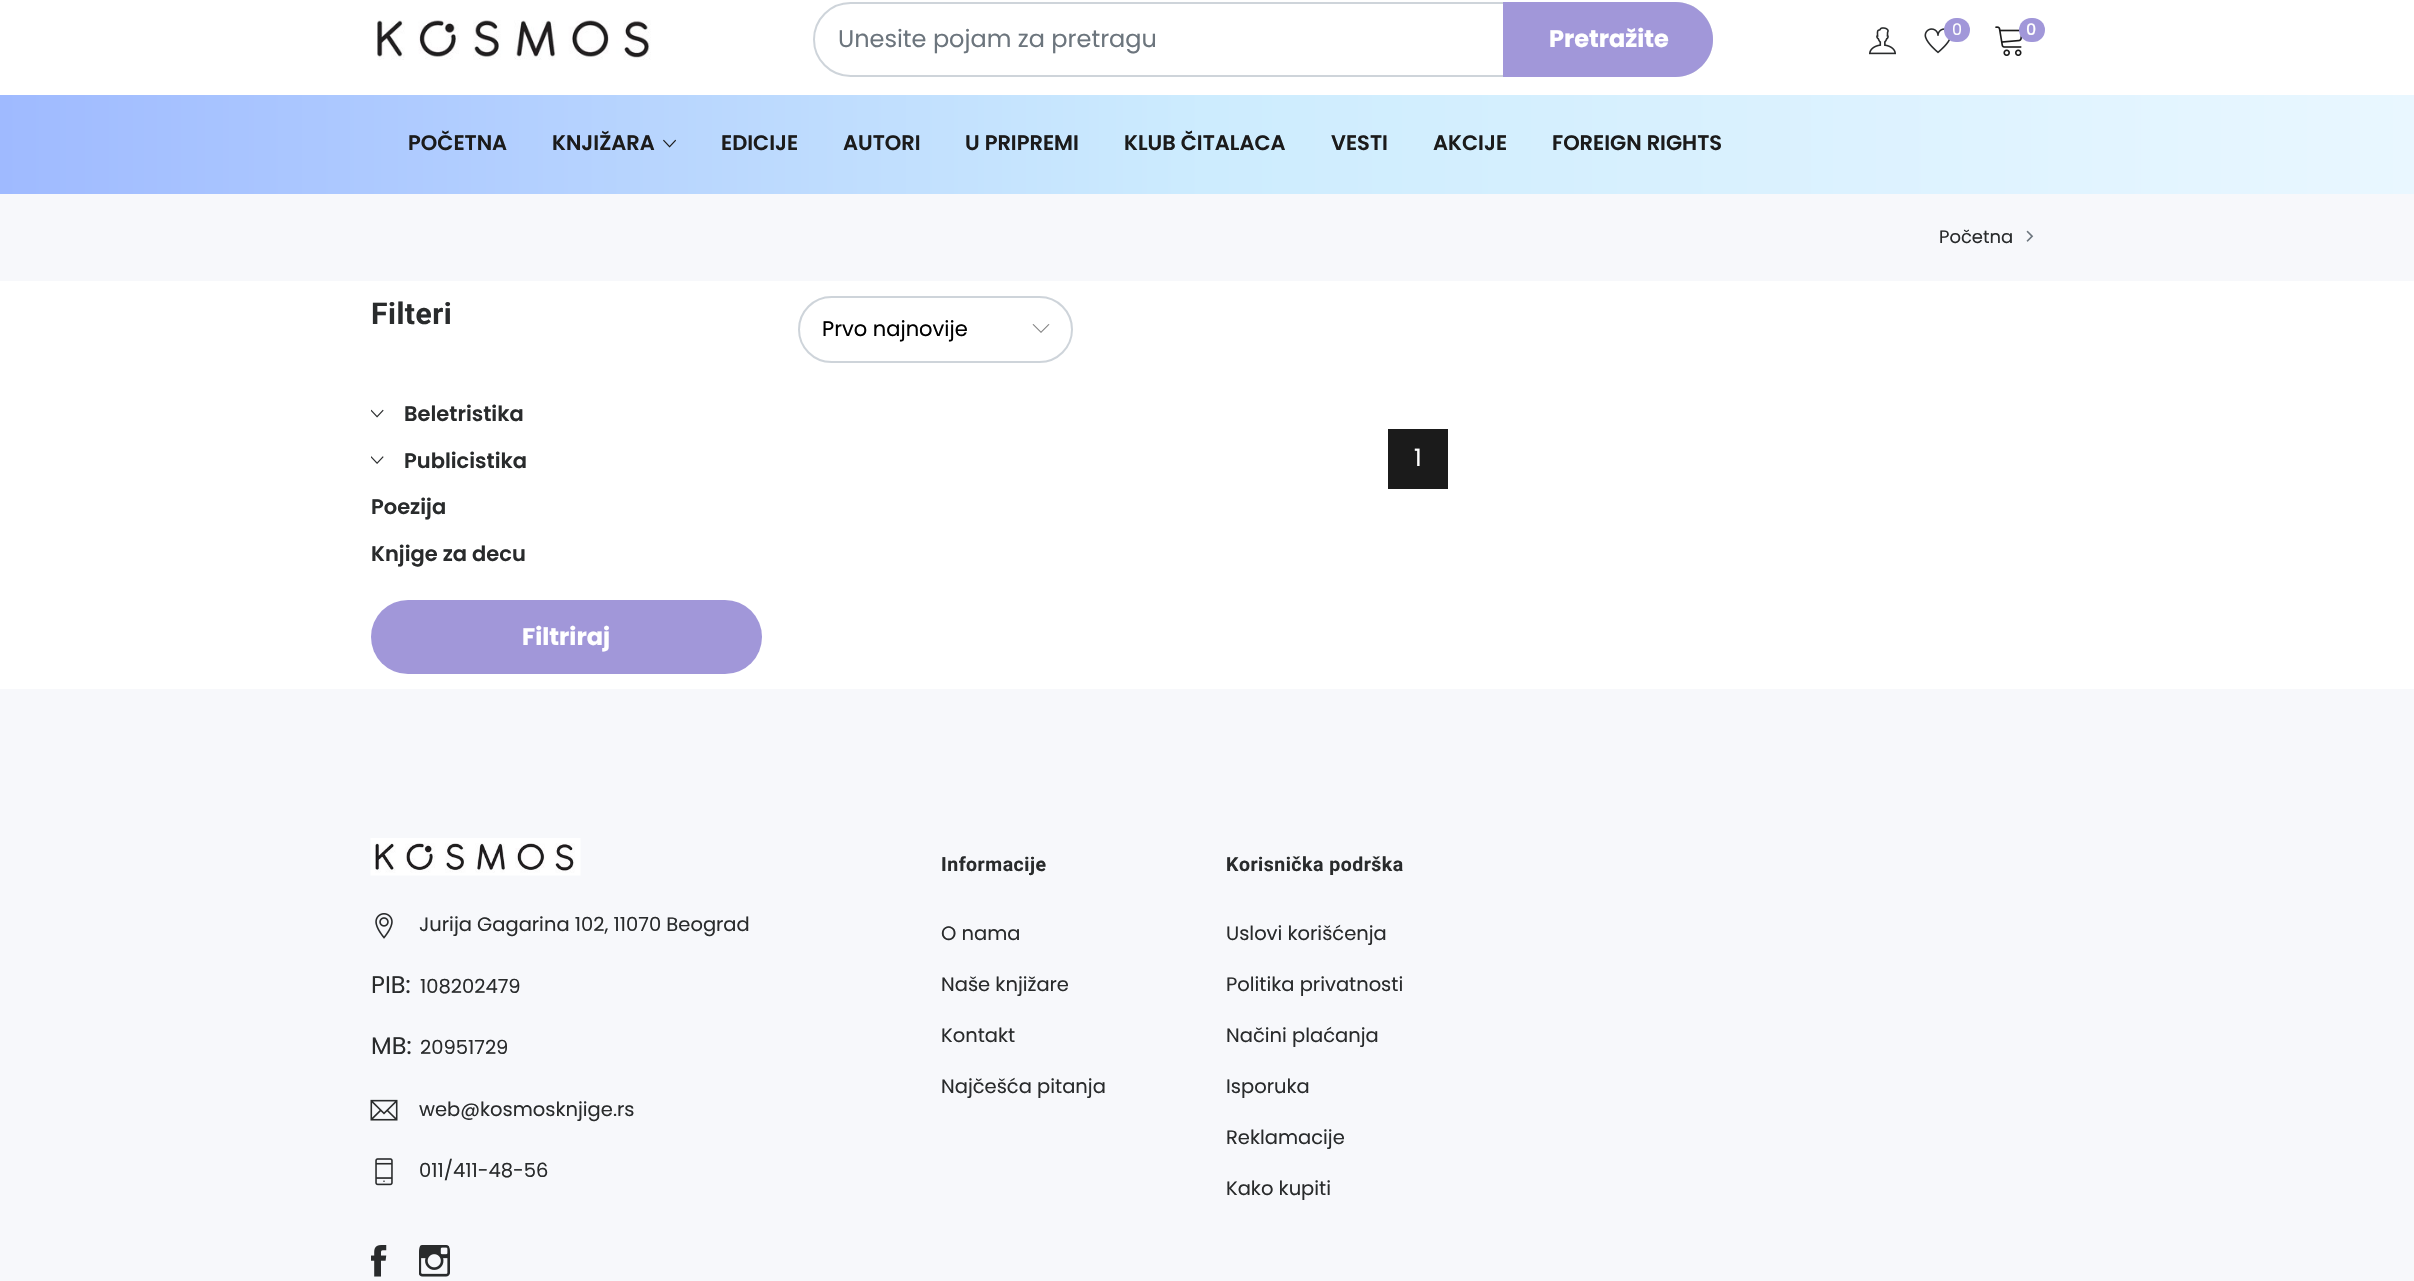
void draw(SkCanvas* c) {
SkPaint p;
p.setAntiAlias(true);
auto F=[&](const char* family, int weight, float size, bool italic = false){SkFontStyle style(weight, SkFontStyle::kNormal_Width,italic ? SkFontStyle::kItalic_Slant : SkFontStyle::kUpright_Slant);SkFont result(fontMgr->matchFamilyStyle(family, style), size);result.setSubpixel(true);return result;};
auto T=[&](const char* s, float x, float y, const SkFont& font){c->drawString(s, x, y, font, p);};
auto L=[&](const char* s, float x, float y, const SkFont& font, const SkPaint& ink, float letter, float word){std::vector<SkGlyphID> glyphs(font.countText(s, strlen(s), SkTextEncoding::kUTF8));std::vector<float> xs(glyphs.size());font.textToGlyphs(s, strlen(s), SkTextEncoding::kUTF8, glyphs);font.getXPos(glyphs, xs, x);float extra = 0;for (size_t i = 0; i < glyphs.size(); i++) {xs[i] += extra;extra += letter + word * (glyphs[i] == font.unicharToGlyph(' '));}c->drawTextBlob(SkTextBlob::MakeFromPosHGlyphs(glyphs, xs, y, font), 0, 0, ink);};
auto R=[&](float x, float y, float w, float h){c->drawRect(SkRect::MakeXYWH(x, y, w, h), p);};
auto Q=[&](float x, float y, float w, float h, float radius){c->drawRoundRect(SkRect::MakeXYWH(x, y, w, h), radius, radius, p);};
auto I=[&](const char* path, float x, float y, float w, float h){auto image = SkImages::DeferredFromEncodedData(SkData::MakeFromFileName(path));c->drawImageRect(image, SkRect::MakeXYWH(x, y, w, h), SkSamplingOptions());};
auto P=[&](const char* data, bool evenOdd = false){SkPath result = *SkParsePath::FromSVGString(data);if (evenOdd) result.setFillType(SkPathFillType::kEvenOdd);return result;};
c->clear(0xffffffff);
I("1.png",377,20,274,40);
p.setStroke(true);
p.setStrokeWidth(2);
p.setColor(0xffced4da);
c->drawRoundRect(SkRect::MakeXYWH(814,3,898,73),36.5,36.5,p);
auto f1 = F("Poppins",400,24);
p.setStroke(false);
p.setColor(0xff6c757d);
T("Unesite pojam za pretragu",838,47,f1);
p.setColor(0xffa197d9);
c->drawPath(P("M1503 2h172.5c20.5 0 37.5 17 37.5 37.5c0 20.5-17 37.5-37.5 37.5h-172.5z"),p);
auto f2 = F("Poppins",700,24);
p.setColor(0xffffffff);
T("Pretražite",1549,47,f2);
I("2.png",1869,27,27,28);
I("3.png",1924,28,27,26);
p.setColor(0xffa197d9);
Q(1944,18,26,24,12);
auto f3 = F("Poppins",400,16);
p.setColor(0xffffffff);
T("0",1952,35,f3);
I("4.png",1995,26,28,30);
p.setColor(0xffa197d9);
Q(2019,18,26,24,12);
auto f4 = F("Poppins",500,16);
p.setColor(0xffffffff);
T("0",2026,35,f4);
{
const SkColor colors[] = {0xff9fbaff,0xffcdecfe,0xffe9f7ff};
const float stops[] = {0,.5,1};
const SkPoint ends[] = {{0,144}, {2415,144}};
p.setShader(SkGradientShader::MakeLinear(ends, colors, stops, 3, SkTileMode::kClamp));
p.setAlpha(255);
}
R(0,95,2414,99);
auto f5 = F("Poppins",600,21);
p.setShader(nullptr);
p.setColor(0xff1b1b1b);
T("POČETNA",408,150,f5);
T("KNJIŽARA",552,150,f5);
I("5.png",663,139,13,9);
T("EDICIJE",721,150,f5);
T("AUTORI",843,150,f5);
T("U PRIPREMI",965,150,f5);
T("KLUB ČITALACA",1124,150,f5);
T("VESTI",1331,150,f5);
T("AKCIJE",1433,150,f5);
T("FOREIGN RIGHTS",1552,150,f5);
p.setColor(0xfff7f8fb);
R(0,194,2414,87);
auto f6 = F("Poppins",400,18);
p.setColor(0xff292b2c);
T("Početna",1939,243,f6);
I("6.png",2026,230,8,12);
auto f7 = F("Roboto",700,30);
L("Filteri",371,324,f7,p,.5,0);
I("7.png",371,409,13,9);
T("Beletristika",404,421,f5);
I("8.png",371,456,13,8);
T("Publicistika",404,468,f5);
T("Poezija",371,514,f5);
T("Knjige za decu",371,561,f5);
p.setColor(0xffa197d9);
Q(371,600,391,74,37);
p.setColor(0xffffffff);
T("Filtriraj",522,645,f2);
p.setStroke(true);
p.setColor(0xffced4da);
c->drawRoundRect(SkRect::MakeXYWH(799,297,273,65),32.5,32.5,p);
auto f8 = F("Poppins",400,21);
p.setStroke(false);
p.setColor(0xff000000);
T("Prvo najnovije",822,336,f8);
p.setColor(0xff848484);
c->drawPath(P("M1049.5 324.5l-8.5 8.5l-8.5-8.5l1-.5l7.5 7.5l7.5-7.5z"),p);
p.setColor(0xff1b1b1b);
R(1388,429,60,60);
p.setColor(0xffffffff);
T("1",1414,466,f1);
p.setColor(0xfff7f8fb);
R(0,689,2414,592);
I("9.png",370,838,211,38);
I("10.png",375,913,18,26);
auto f9 = F("Poppins",400,19.5);
p.setColor(0xff292b2c);
T("Jurija Gagarina 102, 11070 Beograd",419,931,f9);
T("PIB:",371,993,f1);
T("108202479",420,993,f9);
T("MB:",371,1054,f1);
T("20951729",420,1054,f9);
I("11.png",370,1099,28,22);
T("web@kosmosknjige.rs",419,1116,f9);
I("12.png",375,1158,18,28);
T("011/411-48-56",419,1177,f9);
I("13.png",371,1245,16,32);
I("14.png",419,1245,31,32);
auto f10 = F("Roboto",700,19.5);
L("Informacije",941,871,f10,p,.5,0);
T("O nama",941,940,f9);
T("Naše knjižare",941,991,f9);
T("Kontakt",941,1042,f9);
T("Najčešća pitanja",941,1093,f9);
L("Korisnička podrška",1226,871,f10,p,.5,0);
T("Uslovi korišćenja",1226,940,f9);
T("Politika privatnosti",1226,991,f9);
T("Načini plaćanja",1226,1042,f9);
T("Isporuka",1226,1093,f9);
T("Reklamacije",1226,1144,f9);
T("Kako kupiti",1226,1195,f9);
}
